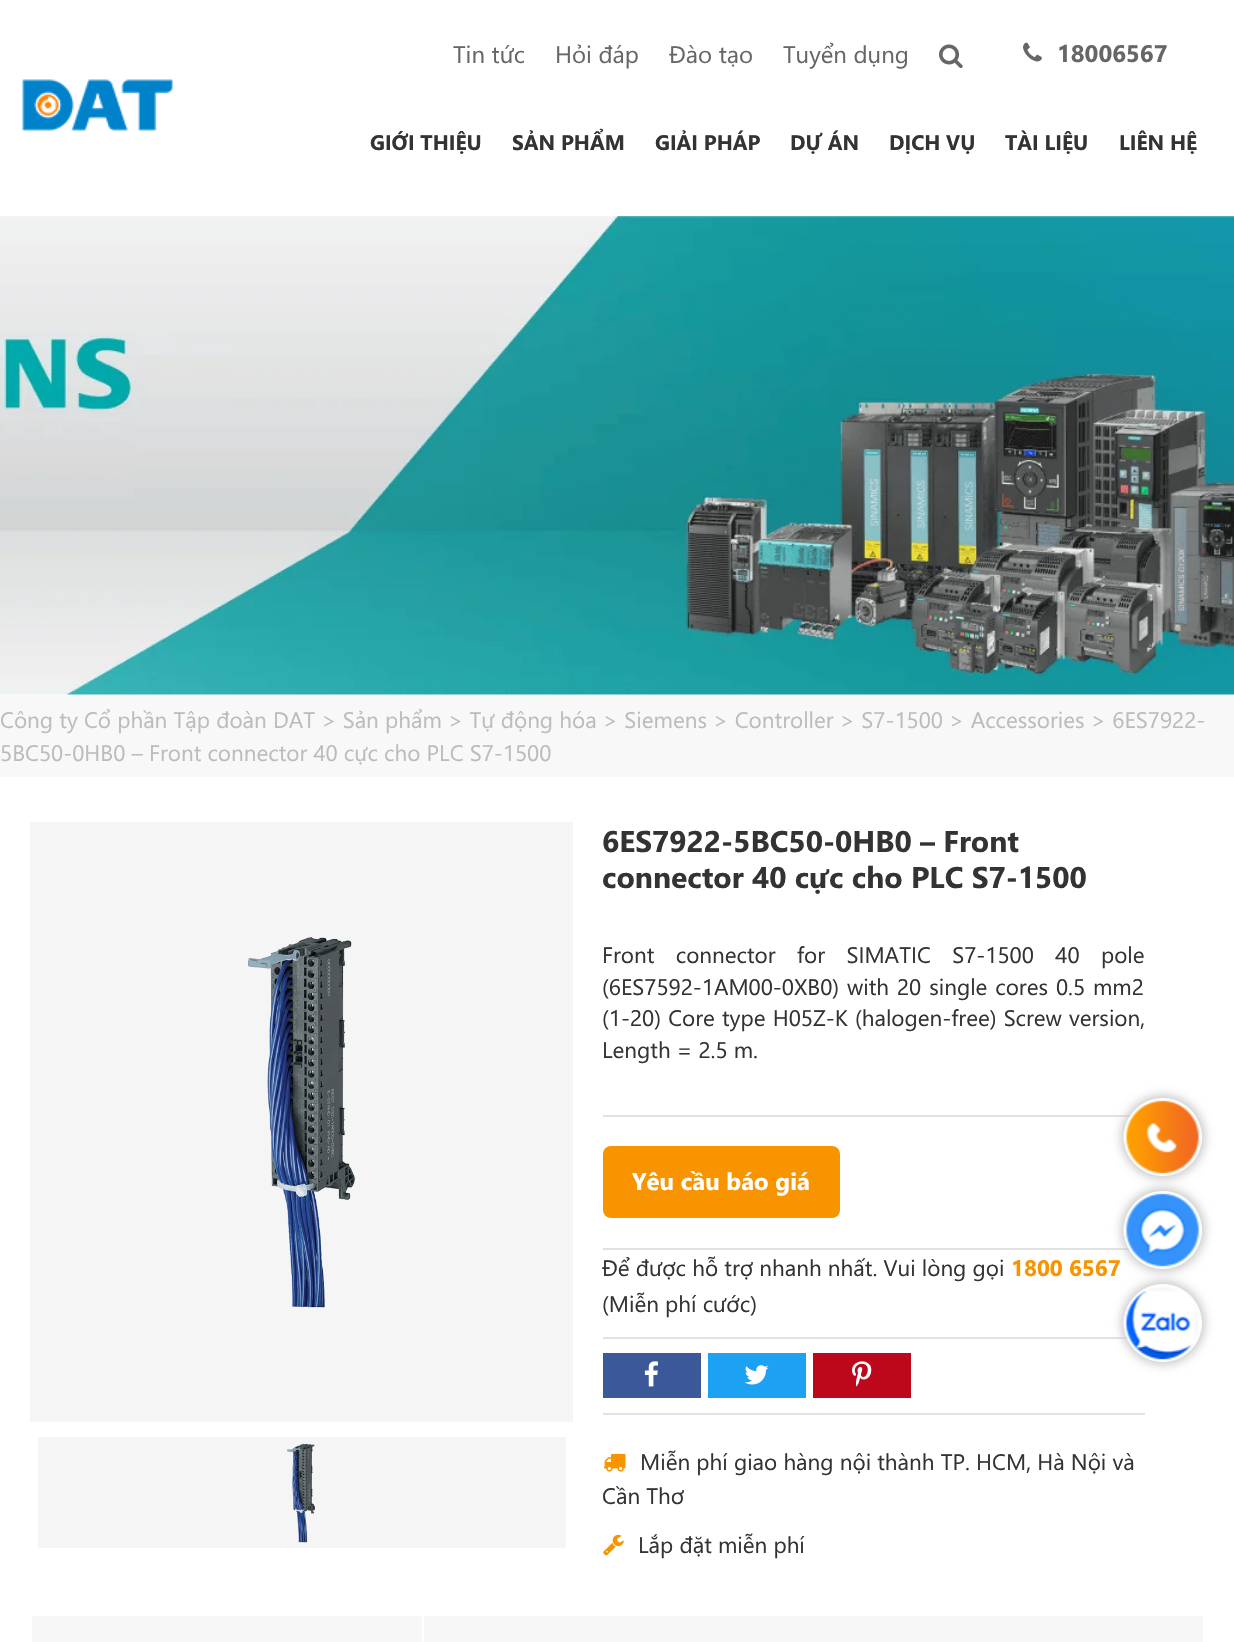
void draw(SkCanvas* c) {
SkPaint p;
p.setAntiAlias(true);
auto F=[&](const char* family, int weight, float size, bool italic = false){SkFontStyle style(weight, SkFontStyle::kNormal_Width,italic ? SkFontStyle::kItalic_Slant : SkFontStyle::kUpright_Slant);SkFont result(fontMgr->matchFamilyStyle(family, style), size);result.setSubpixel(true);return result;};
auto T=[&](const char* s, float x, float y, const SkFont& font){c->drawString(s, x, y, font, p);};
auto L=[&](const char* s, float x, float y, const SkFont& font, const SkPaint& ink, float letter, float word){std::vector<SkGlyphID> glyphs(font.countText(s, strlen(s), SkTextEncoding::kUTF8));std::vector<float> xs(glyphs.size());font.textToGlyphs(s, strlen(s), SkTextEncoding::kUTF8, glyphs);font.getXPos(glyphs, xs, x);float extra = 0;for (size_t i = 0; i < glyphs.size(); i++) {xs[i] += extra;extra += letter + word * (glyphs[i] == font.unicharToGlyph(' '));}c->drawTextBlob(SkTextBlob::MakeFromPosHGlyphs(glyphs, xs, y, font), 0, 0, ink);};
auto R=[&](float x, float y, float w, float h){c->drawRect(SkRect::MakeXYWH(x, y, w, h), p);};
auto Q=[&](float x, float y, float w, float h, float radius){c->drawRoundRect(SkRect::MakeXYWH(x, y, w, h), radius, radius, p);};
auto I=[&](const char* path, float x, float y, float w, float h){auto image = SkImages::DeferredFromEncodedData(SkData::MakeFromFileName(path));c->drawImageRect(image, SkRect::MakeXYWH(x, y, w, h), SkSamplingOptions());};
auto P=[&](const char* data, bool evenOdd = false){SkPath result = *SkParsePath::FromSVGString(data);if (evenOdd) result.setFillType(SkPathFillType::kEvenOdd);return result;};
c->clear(0xffffffff);
I("1.png",22,79,151,52);
auto f1 = F("Segoe UI",400,24);
p.setColor(0xff666666);
T("Tin tức",453,63,f1);
T("Hỏi đáp",555,63,f1);
T("Đào tạo",669,63,f1);
T("Tuyển dụng",783,63,f1);
I("2.png",939,44,24,25);
I("3.png",1023,42,19,20);
auto f2 = F("Segoe UI",700,24);
T("18006567",1057,62,f2);
auto f3 = F("Segoe UI",700,21);
p.setColor(0xff333333);
T("GIỚI THIỆU",370,150,f3);
T("SẢN PHẨM",512,150,f3);
T("GIẢI PHÁP",655,150,f3);
T("DỰ ÁN",790,150,f3);
T("DỊCH VỤ",889,150,f3);
T("TÀI LIỆU",1005,150,f3);
T("LIÊN HỆ",1119,150,f3);
I("4.png",0,216,1234,479);
p.setColor(0xfff8f8f8);
R(0,695,1234,82);
auto f4 = F("Segoe UI",400,22.5);
p.setColor(0xffbcbcbc);
T("Công ty Cổ phần Tập đoàn DAT > Sản phẩm > Tự động hóa > Siemens > Controller > S7-1500 > Accessories > 6ES7922-",0,728,f4);
T("5BC50-0HB0 – Front connector 40 cực cho PLC S7-1500",0,761,f4);
p.setColor(0xfff5f5f5);
R(30,822,543,600);
I("5.png",248,937,107,371);
R(38,1437,528,111);
I("6.png",287,1443,28,100);
auto f5 = F("Segoe UI",700,30);
p.setColor(0xff333333);
T("6ES7922-5BC50-0HB0 – Front",602,852,f5);
T("connector 40 cực cho PLC S7-1500",602,888,f5);
p.setColor(0xffe1e1e1);
R(603,1115,529,2);
p.setColor(0xff333333);
L("Front connector for SIMATIC S7-1500 40 pole",602,963,f4,p,0,15.25);
L("(6ES7592-1AM00-0XB0) with 20 single cores 0.5 mm2",602,995,f4,p,0,1.75);
L("(1-20) Core type H05Z-K (halogen-free) Screw version,",602,1026,f4,p,0,1);
T("Length = 2.5 m.",602,1058,f4);
p.setColor(0xffe1e1e1);
R(603,1337,526,2);
R(603,1248,528,2);
p.setColor(0xfff89400);
Q(603,1146,237,72,8);
p.setColor(0xffffffff);
T("Yêu cầu báo giá",632,1190,f2);
p.setColor(0xff333333);
T("Để được hỗ trợ nhanh nhất. Vui lòng gọi",602,1276,f4);
auto f6 = F("Segoe UI",700,22.5);
p.setColor(0xfff89400);
T("1800 6567",1011,1276,f6);
p.setColor(0xff333333);
T("(Miễn phí cước)",602,1312,f4);
p.setColor(0xffe1e1e1);
R(603,1413,542,2);
p.setColor(0xff3b5998);
R(603,1353,98,45);
I("7.png",644,1361,14,26);
p.setColor(0xff1da1f2);
R(708,1353,98,45);
I("8.png",744,1365,25,20);
p.setColor(0xffbd081c);
R(813,1353,98,45);
I("9.png",852,1361,20,26);
I("10.png",603,1453,23,19);
p.setColor(0xff333333);
T("Miễn phí giao hàng nội thành TP. HCM, Hà Nội và",640,1470,f4);
T("Cần Thơ",602,1504,f4);
I("11.png",603,1534,21,22);
T("Lắp đặt miễn phí",638,1553,f4);
p.setColor(0xfff7f7f7);
R(32,1616,1171,26);
p.setColor(0xffffffff);
R(422,1614,2,28);
c->save();
c->clipPath(P("M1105 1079h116v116h-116zm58 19c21.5 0 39 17.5 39 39c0 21.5-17.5 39-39 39c-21.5 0-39-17.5-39-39c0-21.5 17.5-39 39-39z",true),true);
p.setColor(0xffc9c9c9);
p.setMaskFilter(SkMaskFilter::MakeBlur(kNormal_SkBlurStyle, 5));
c->drawRoundRect(SkRect::MakeXYWH(1121,1095,84,84),42,42,p);
p.setMaskFilter(nullptr);
c->restore();
I("12.png",1123,1099,79,76);
c->save();
c->clipPath(P("M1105 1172h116v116h-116zm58 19c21.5 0 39 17.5 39 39c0 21.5-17.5 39-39 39c-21.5 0-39-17.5-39-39c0-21.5 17.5-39 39-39z",true),true);
p.setMaskFilter(SkMaskFilter::MakeBlur(kNormal_SkBlurStyle, 5));
c->drawRoundRect(SkRect::MakeXYWH(1121,1188,84,84),42,42,p);
p.setMaskFilter(nullptr);
c->restore();
I("13.png",1123,1192,79,76);
c->save();
c->clipPath(P("M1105 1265h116v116h-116zm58 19c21.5 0 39 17.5 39 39c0 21.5-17.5 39-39 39c-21.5 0-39-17.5-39-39c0-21.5 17.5-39 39-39z",true),true);
p.setMaskFilter(SkMaskFilter::MakeBlur(kNormal_SkBlurStyle, 5));
c->drawRoundRect(SkRect::MakeXYWH(1121,1281,84,84),42,42,p);
p.setMaskFilter(nullptr);
c->restore();
I("14.png",1123,1285,79,76);
}
